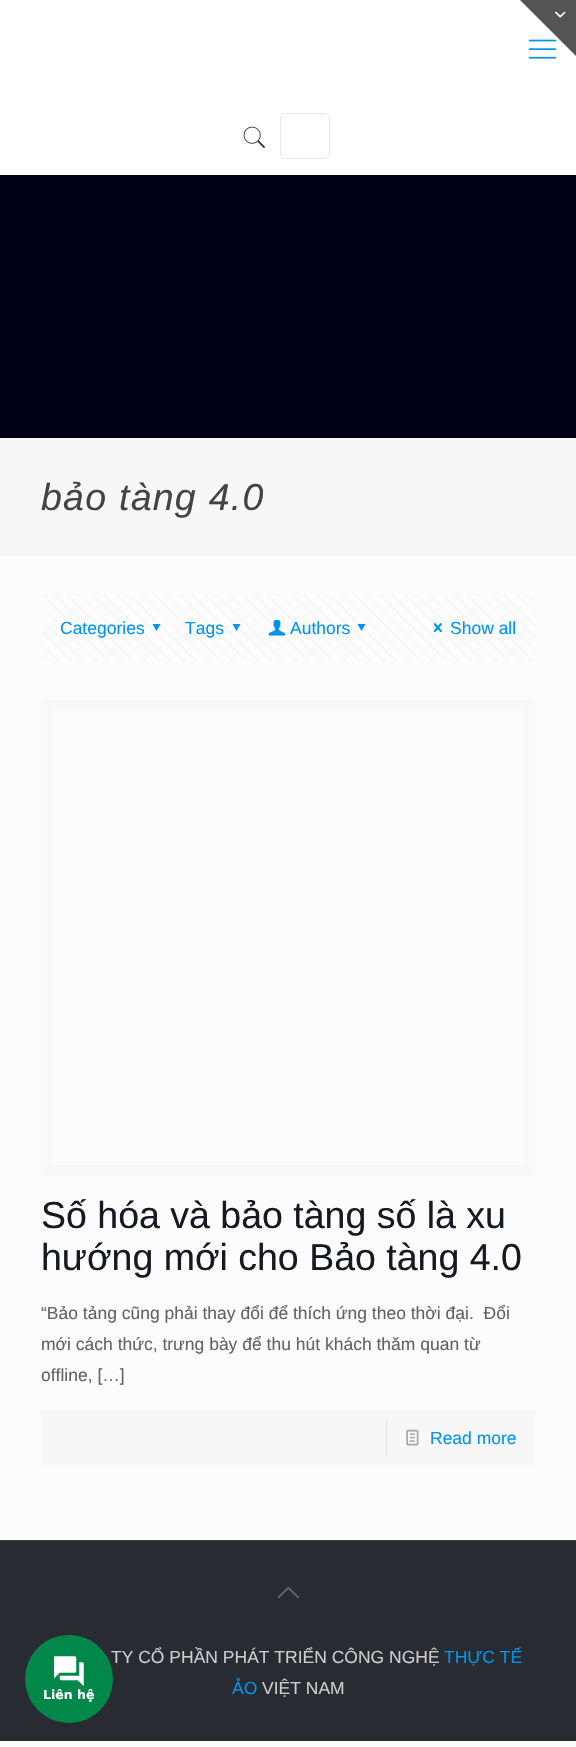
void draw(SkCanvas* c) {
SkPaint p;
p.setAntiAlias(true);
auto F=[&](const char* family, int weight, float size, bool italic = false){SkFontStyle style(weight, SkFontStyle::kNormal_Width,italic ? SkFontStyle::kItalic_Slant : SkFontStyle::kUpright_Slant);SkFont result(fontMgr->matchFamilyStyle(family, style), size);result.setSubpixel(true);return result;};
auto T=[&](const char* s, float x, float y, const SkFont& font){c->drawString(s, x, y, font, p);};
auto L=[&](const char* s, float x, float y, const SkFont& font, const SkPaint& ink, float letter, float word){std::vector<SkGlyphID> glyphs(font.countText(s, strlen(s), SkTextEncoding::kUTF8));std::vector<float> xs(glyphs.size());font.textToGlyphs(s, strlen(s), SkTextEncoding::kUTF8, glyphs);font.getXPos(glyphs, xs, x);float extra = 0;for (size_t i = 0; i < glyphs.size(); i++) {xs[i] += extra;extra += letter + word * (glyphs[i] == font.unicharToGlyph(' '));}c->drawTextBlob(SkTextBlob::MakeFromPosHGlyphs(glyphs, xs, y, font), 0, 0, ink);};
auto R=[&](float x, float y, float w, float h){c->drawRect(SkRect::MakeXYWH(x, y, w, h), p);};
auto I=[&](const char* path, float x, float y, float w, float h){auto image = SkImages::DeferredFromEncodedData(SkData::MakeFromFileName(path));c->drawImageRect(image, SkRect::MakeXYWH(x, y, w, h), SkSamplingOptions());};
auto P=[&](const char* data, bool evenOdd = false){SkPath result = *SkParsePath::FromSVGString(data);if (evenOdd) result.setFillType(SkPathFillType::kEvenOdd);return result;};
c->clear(0xfffcfcfc);
p.setColor(0xffffffff);
R(0,0,576,175);
I("2.png",528,39,29,20);
p.setColor(0xff545454);
c->drawPath(P("M576 0v56l-56-56z"),p);
I("1.png",555,11,11,7);
p.setColor(0xff000119);
R(0,175,576,263);
I("3.png",243,126,23,23);
p.setStroke(true);
p.setStrokeWidth(1);
p.setColor(0xffe6e6e6);
c->drawRoundRect(SkRect::MakeXYWH(280.5,113.5,49,45),5.5,5.5,p);
p.setStroke(false);
p.setColor(0xfff7f7f7);
R(0,438,576,118);
auto f1 = F("Liberation Sans",400,37.5,true);
p.setColor(0xff444444);
L("bảo tàng 4.0",41,510,f1,p,1.25,0);
I("4.png",41,594,494,68);
auto f2 = F("Liberation Sans",400,17.5);
p.setColor(0xff0095eb);
T("Categories",60,634,f2);
c->drawPath(P("M160.5 624l-4 7l-4-7z"),p);
T("Tags",185,634,f2);
c->drawPath(P("M240.5 624l-4 7l-4-7z"),p);
I("5.png",268,619,18,17);
T("Authors",290,634,f2);
c->drawPath(P("M365.5 624l-4 7l-4-7z"),p);
I("6.png",433,623,9,10);
T("Show all",450,634,f2);
p.setStroke(true);
p.setStrokeWidth(10);
p.setColor(0xfff8f8f8);
c->drawRect(SkRect::MakeXYWH(46,705,484,465),p);
auto f3 = F("Liberation Sans",400,37.5);
p.setStroke(false);
p.setColor(0xff161922);
T("Số hóa và bảo tàng số là xu",41,1228,f3);
T("hướng mới cho Bảo tàng 4.0",41,1270,f3);
p.setColor(0xff626262);
T("“Bảo tảng cũng phải thay đổi để thích ứng theo thời đại.  Đổi",41,1319,f2);
T("mới cách thức, trưng bày để thu hút khách thăm quan từ",41,1350,f2);
T("offline, […]",41,1381,f2);
p.setColor(0xfff7f7f7);
R(41,1410,494,55);
p.setColor(0xffe3e3e3);
R(386,1419,1,37);
I("7.png",406,1429,13,17);
p.setColor(0xff0095eb);
T("Read more",430,1444,f2);
p.setColor(0xff292b33);
R(0,1541,576,200);
p.setColor(0xff3e4047);
R(0,1540,576,1);
I("8.png",277,1586,22,13);
p.setColor(0xffcccccc);
T("TY CỔ PHẦN PHÁT TRIỂN CÔNG NGHỆ",111,1663,f2);
p.setColor(0xff0095eb);
T("THỰC TẾ",444,1663,f2);
T("ẢO",232,1694,f2);
p.setColor(0xffcccccc);
T("VIỆT NAM",262,1694,f2);
p.setColor(0xff008749);
c->drawCircle(69,1679,44,p);
I("9.png",54,1656,30,30);
auto f4 = F("DejaVu Sans",700,12.5);
p.setColor(0xffffffff);
T("Liên hệ",43,1699,f4);
}
